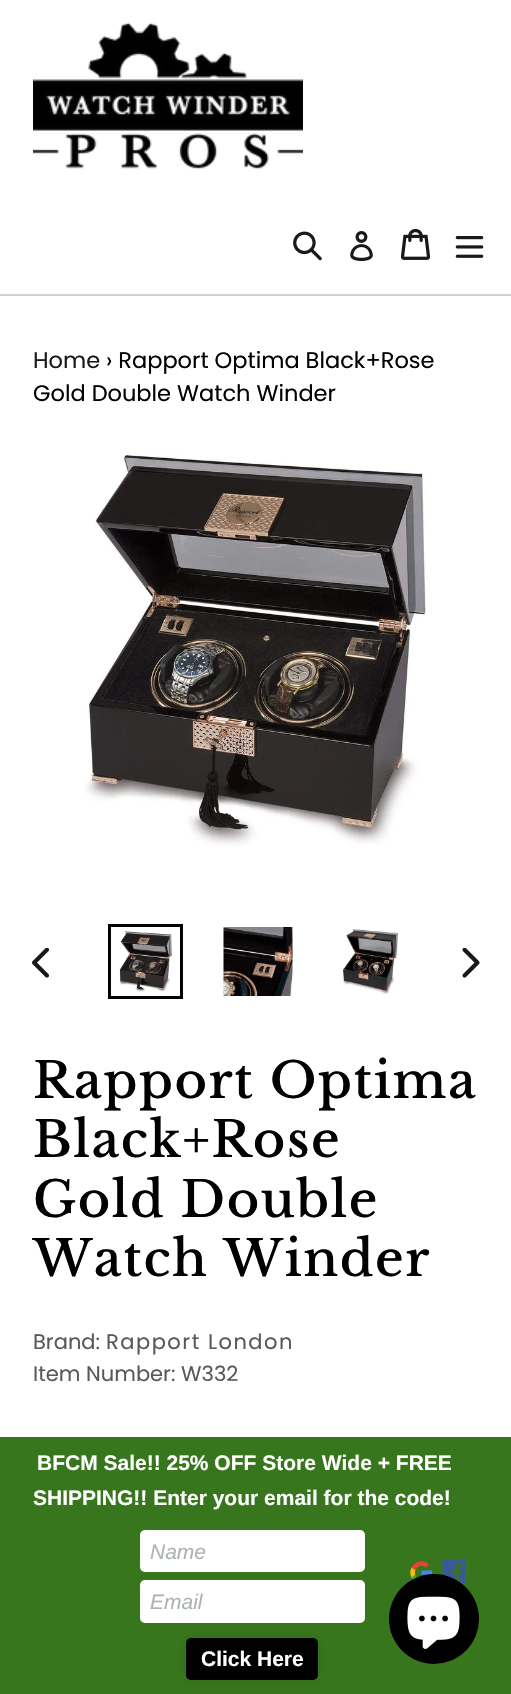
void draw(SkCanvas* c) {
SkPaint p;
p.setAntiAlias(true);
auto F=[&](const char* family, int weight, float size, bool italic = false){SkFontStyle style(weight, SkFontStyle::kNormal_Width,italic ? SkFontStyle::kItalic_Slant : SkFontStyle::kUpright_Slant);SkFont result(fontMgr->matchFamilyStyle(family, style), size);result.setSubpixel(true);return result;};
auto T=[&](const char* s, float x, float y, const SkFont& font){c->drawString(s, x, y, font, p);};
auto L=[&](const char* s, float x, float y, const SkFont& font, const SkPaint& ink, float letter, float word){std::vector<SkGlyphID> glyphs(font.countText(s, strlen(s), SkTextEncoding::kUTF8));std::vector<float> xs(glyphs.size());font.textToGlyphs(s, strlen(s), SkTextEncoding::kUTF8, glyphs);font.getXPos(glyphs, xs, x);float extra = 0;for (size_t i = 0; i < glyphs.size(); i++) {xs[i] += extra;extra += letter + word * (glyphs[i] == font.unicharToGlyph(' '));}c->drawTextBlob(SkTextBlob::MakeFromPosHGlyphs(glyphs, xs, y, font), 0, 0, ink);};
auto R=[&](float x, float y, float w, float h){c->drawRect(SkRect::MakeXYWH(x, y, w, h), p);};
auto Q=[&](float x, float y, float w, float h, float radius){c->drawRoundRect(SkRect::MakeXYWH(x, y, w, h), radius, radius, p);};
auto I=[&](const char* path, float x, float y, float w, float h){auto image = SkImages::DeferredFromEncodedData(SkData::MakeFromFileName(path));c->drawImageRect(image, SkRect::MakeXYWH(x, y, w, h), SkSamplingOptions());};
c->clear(0xffffffff);
p.setColor(0xffd2d2d2);
R(0,294,511,2);
I("1.png",33,22,270,147);
I("2.png",293,231,29,30);
I("3.png",350,231,23,30);
I("4.png",401,228,30,32);
I("5.png",455,236,29,22);
auto f1 = F("Poppins",400,22.5);
p.setColor(0xff191919);
T("Home",33,368,f1);
p.setColor(0xff000000);
T("› Rapport Optima Black+Rose",106,368,f1);
T("Gold Double Watch Winder",33,401,f1);
I("6.png",85,453,342,393);
I("7.png",32,948,17,30);
p.setStroke(true);
p.setStrokeWidth(3);
c->drawRect(SkRect::MakeXYWH(109.5,925.5,72,72),p);
I("8.png",119,931,53,61);
I("9.png",223,927,70,69);
I("10.png",343,929,56,65);
I("11.png",462,948,18,30);
auto f2 = F("Libre Baskerville",500,49.5);
p.setStroke(false);
L("Rapport Optima",33,1098,f2,p,1.5,0);
L("Black+Rose",33,1157,f2,p,1.5,0);
L("Gold Double",33,1217,f2,p,1.5,0);
L("Watch Winder",33,1276,f2,p,1.5,0);
auto f3 = F("Poppins",400,21);
p.setColor(0xff595959);
T("Brand:",33,1349,f3);
L("Rapport London",106,1349,f3,p,1.5,0);
T("Item Number: W332",33,1381,f3);
p.setColor(0xff38761d);
R(0,1437,511,257);
auto f4 = F("Liberation Sans",700,21);
p.setColor(0xffffffff);
T("BFCM Sale!! 25% OFF Store Wide + FREE",37,1470,f4);
T("SHIPPING!! Enter your email for the code!",33,1505,f4);
Q(140,1530,225,42,5);
auto f5 = F("Liberation Sans",400,21,true);
p.setColor(0xffadb3b4);
T("Name",150,1559,f5);
I("15.png",411,1574,7,6);
I("13.png",410,1567,6,11);
I("14.png",421,1570,12,5);
I("12.png",411,1561,18,10);
I("16.png",442,1559,25,24);
p.setColor(0xffffffff);
Q(140,1580,225,43,5);
p.setColor(0xffadb3b4);
T("Email",150,1609,f5);
p.setColor(0x1a000000);
p.setMaskFilter(SkMaskFilter::MakeBlur(kNormal_SkBlurStyle, 4));
c->drawRoundRect(SkRect::MakeXYWH(186,1638,132,42),5,5,p);
p.setMaskFilter(nullptr);
p.setColor(0xff000000);
Q(186,1638,132,42,5);
p.setColor(0xffffffff);
T("Click Here",201,1666,f4);
p.setColor(0xff000000);
c->drawCircle(434,1619,45,p);
I("17.png",407,1596,53,53);
}
